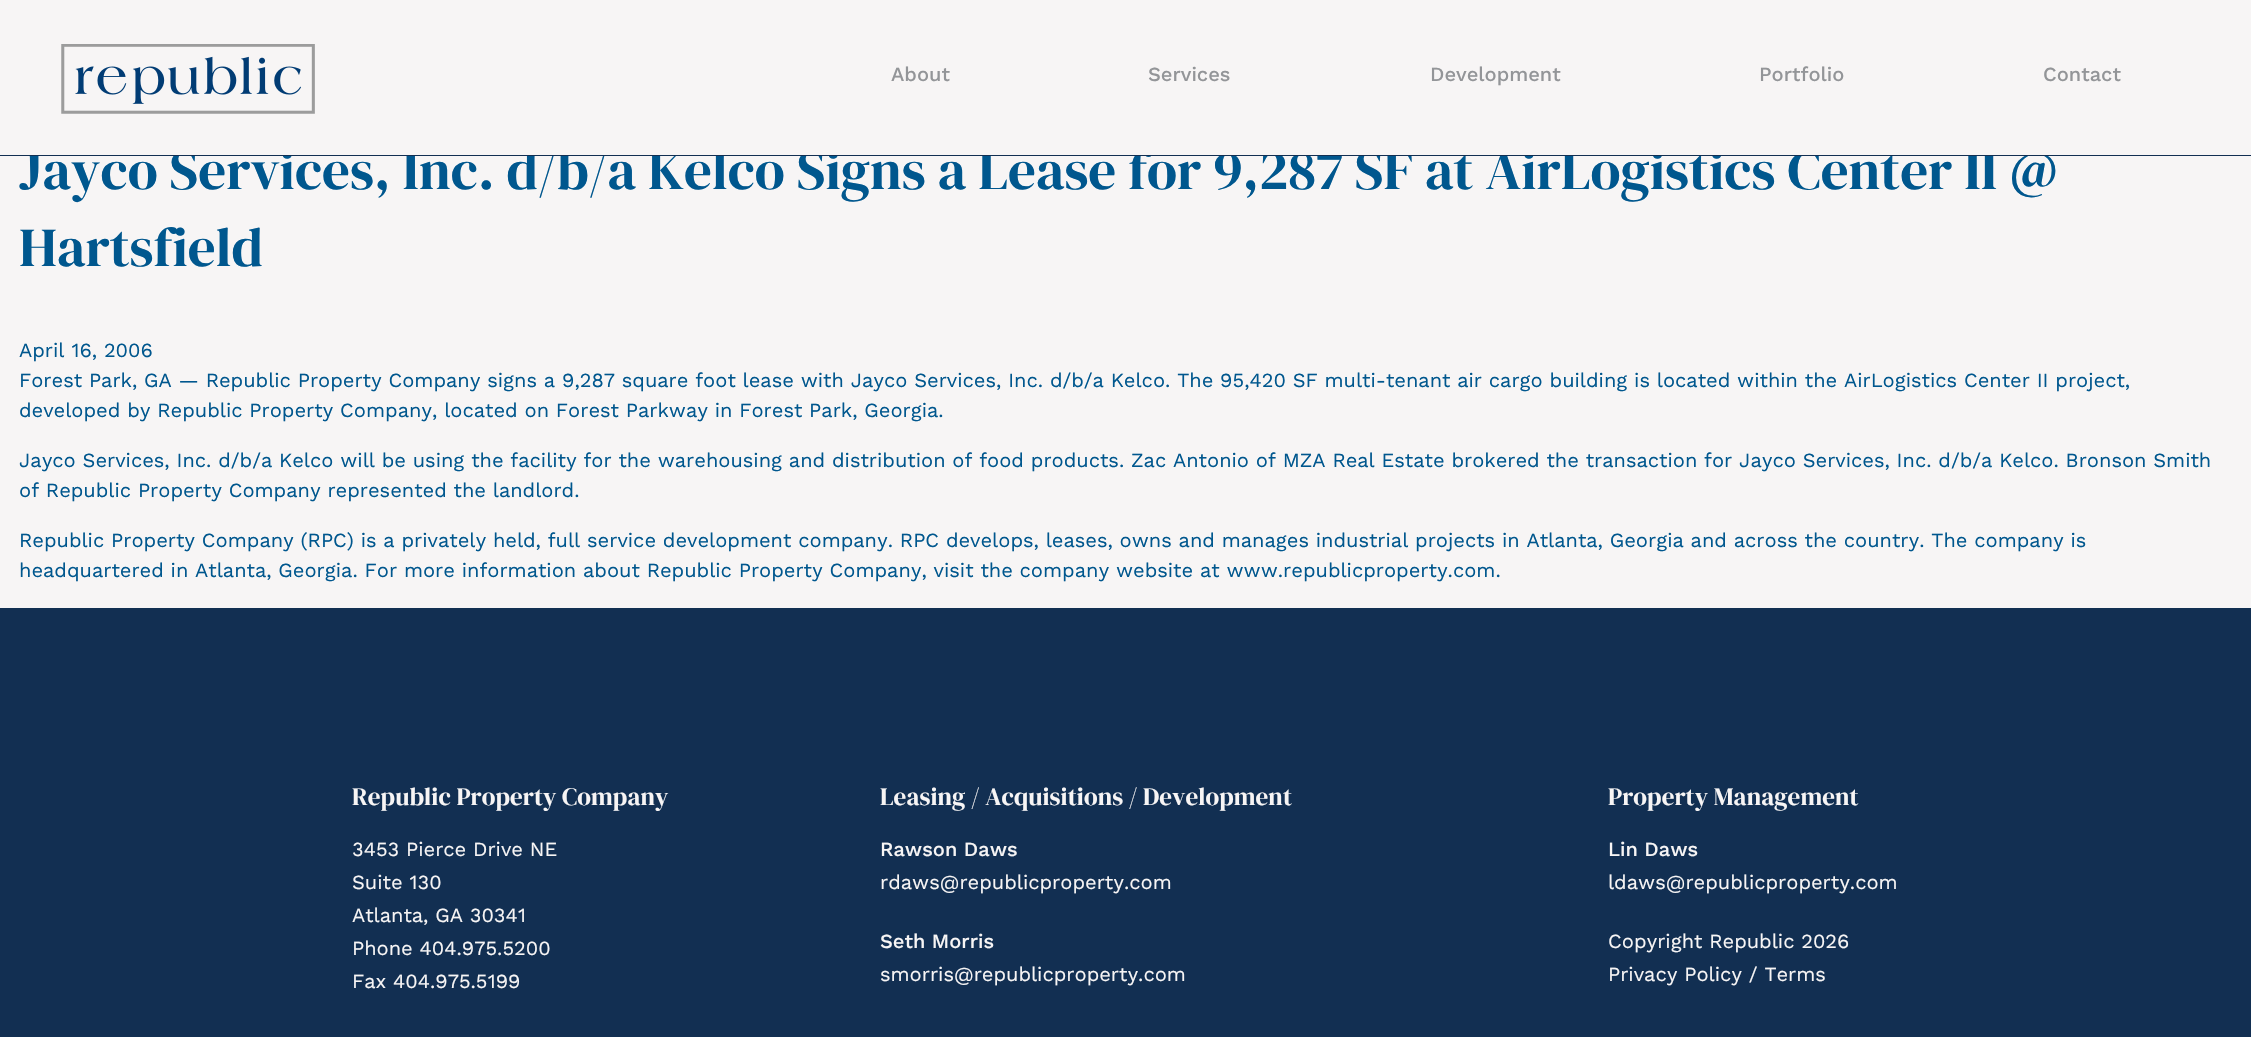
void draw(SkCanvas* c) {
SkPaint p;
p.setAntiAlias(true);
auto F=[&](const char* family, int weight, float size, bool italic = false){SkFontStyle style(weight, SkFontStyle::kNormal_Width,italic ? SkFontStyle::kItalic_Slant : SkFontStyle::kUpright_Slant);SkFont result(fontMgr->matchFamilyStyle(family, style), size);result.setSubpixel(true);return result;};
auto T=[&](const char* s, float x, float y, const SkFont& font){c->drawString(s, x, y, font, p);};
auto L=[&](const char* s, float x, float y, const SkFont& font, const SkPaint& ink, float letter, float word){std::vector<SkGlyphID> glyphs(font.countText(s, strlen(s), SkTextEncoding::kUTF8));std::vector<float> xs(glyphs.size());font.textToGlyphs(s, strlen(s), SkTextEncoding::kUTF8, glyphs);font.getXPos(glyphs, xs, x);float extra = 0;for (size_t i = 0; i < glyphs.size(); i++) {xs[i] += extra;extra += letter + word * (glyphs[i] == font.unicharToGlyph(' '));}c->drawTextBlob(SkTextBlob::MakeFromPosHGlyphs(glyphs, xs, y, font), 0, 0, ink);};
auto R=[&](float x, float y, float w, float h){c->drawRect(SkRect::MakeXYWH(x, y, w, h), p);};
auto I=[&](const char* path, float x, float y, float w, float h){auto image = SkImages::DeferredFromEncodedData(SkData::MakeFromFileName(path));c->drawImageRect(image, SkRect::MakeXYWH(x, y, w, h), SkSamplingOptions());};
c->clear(0xfff7f5f5);
auto f1 = F("DM Serif Display",400,55);
p.setColor(0xff00578e);
T("Jayco Services, Inc. d/b/a Kelco Signs a Lease for 9,287 SF at AirLogistics Center II @",19,189,f1);
p.setColor(0xfff7f5f5);
R(26,149,2020,6);
p.setColor(0xff122f52);
R(0,155,2251,1);
I("1.png",61,44,254,70);
auto f2 = F("Work Sans",500,20);
p.setColor(0xff939598);
T("About",891,81,f2);
T("Services",1148,81,f2);
T("Development",1430,81,f2);
T("Portfolio",1759,81,f2);
T("Contact",2043,81,f2);
p.setColor(0xff00578e);
T("Hartsfield",19,266,f1);
auto f3 = F("Work Sans",400,20);
T("April 16, 2006",19,357,f3);
T("Forest Park, GA — Republic Property Company signs a 9,287 square foot lease with Jayco Services, Inc. d/b/a Kelco. The 95,420 SF multi-tenant air cargo building is located within the AirLogistics Center II project,",19,387,f3);
T("developed by Republic Property Company, located on Forest Parkway in Forest Park, Georgia.",19,417,f3);
T("Jayco Services, Inc. d/b/a Kelco will be using the facility for the warehousing and distribution of food products. Zac Antonio of MZA Real Estate brokered the transaction for Jayco Services, Inc. d/b/a Kelco. Bronson Smith",19,467,f3);
T("of Republic Property Company represented the landlord.",19,497,f3);
T("Republic Property Company (RPC) is a privately held, full service development company. RPC develops, leases, owns and manages industrial projects in Atlanta, Georgia and across the country. The company is",19,547,f3);
T("headquartered in Atlanta, Georgia. For more information about Republic Property Company, visit the company website at www.republicproperty.com.",19,577,f3);
p.setColor(0xff122f52);
R(0,608,2251,429);
auto f4 = F("DM Serif Display",400,25);
p.setColor(0xfff7f5f5);
L("Republic Property Company",352,805,f4,p,.1,0);
T("3453 Pierce Drive NE",352,856,f3);
T("Suite 130",352,889,f3);
T("Atlanta, GA 30341",352,922,f3);
T("Phone 404.975.5200",352,955,f3);
T("Fax 404.975.5199",352,988,f3);
L("Leasing / Acquisitions / Development",880,805,f4,p,.1,0);
T("Rawson Daws",880,856,f2);
T("rdaws@republicproperty.com",880,889,f3);
T("Seth Morris",880,948,f2);
T("smorris@republicproperty.com",880,981,f3);
L("Property Management",1608,805,f4,p,.1,0);
T("Lin Daws",1608,856,f2);
T("ldaws@republicproperty.com",1608,889,f3);
T("Copyright Republic 2026",1608,948,f3);
T("Privacy Policy / Terms",1608,981,f3);
}
